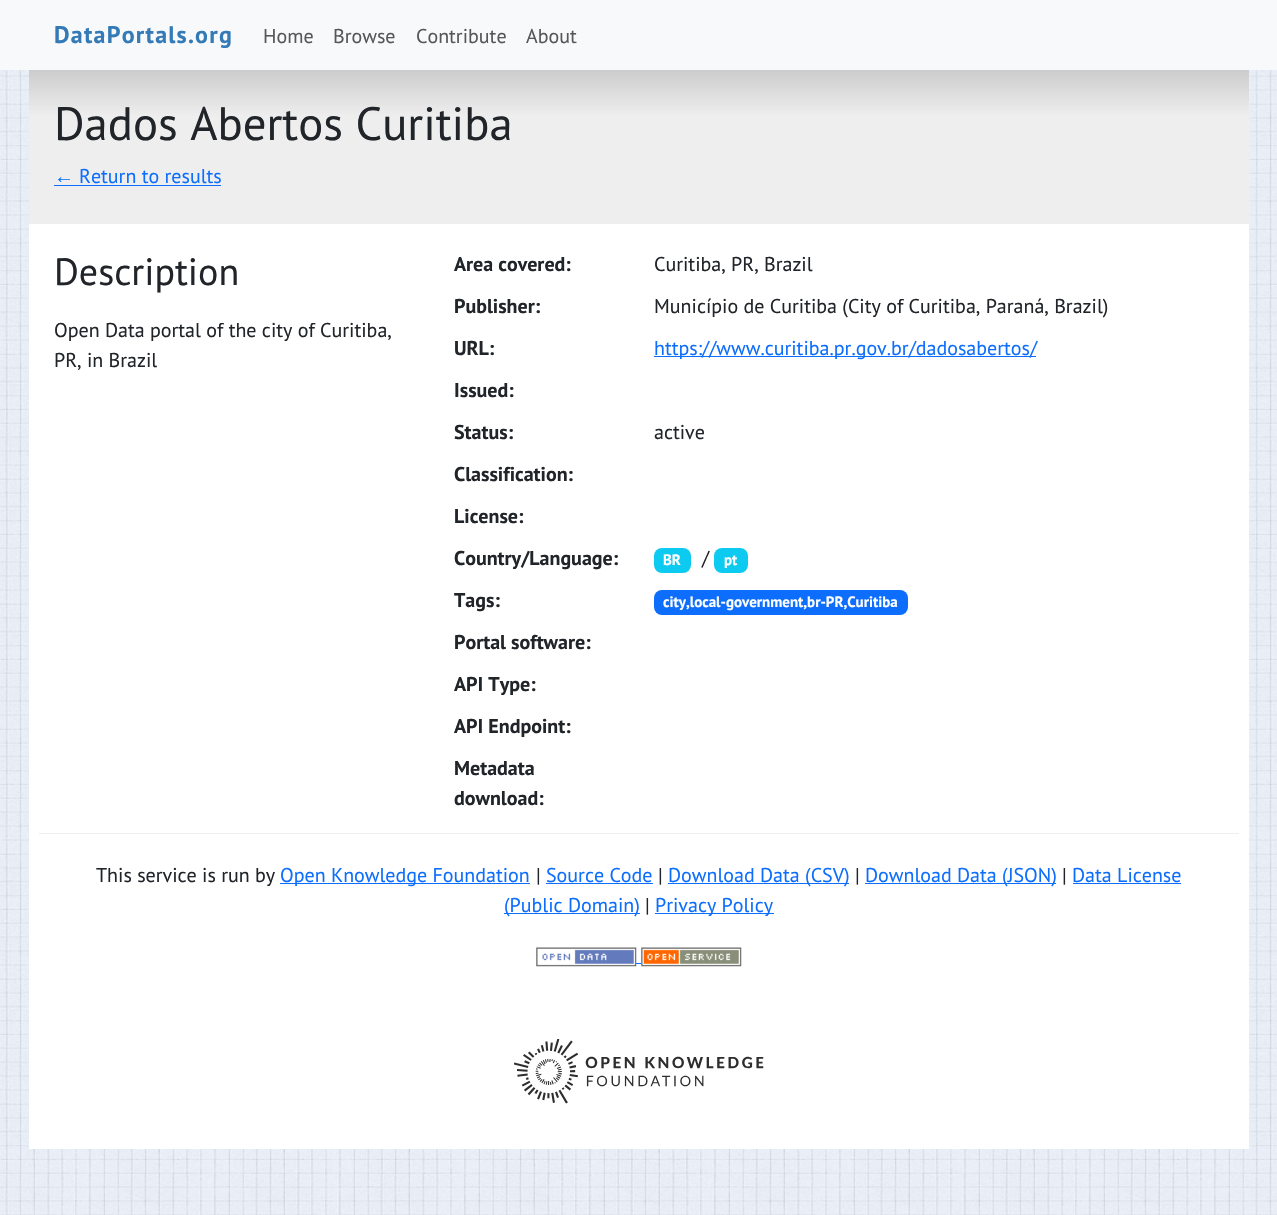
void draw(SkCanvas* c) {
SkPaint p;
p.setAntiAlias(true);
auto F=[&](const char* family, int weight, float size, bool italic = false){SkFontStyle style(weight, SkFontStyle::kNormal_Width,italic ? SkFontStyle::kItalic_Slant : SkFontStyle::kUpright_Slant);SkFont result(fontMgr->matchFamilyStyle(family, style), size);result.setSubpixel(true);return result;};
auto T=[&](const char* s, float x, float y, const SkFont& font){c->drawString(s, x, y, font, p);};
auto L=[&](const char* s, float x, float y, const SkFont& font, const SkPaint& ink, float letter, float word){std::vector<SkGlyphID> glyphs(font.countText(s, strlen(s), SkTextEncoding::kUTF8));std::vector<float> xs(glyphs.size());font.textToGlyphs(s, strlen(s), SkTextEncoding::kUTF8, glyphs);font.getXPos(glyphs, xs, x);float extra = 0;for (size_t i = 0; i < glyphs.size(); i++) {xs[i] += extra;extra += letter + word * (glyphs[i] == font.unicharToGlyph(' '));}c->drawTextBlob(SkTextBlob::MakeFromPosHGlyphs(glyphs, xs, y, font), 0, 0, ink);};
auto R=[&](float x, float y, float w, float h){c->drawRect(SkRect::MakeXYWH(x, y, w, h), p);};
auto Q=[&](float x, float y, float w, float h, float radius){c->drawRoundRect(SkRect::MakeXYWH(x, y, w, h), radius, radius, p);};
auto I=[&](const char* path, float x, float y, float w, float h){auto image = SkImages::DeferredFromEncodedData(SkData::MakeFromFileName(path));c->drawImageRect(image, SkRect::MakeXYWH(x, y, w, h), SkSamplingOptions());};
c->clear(0xffffffff);
I("1.png",0,70,1277,1145);
p.setColor(0xfff8f9fa);
R(0,0,1277,70);
auto f1 = F("PT Sans",700,24);
p.setColor(0xff337ab7);
L("DataPortals.org",54,43,f1,p,1.25,0);
auto f2 = F("PT Sans",400,20);
p.setColor(0xff575758);
T("Home",263,43,f2);
T("Browse",333,43,f2);
T("Contribute",416,43,f2);
T("About",526,43,f2);
p.setColor(0xffffffff);
R(29,224,1220,925);
{
const SkColor colors[] = {0xffeeeeee,0xffcccccc};
const float stops[] = {.7,1};
const SkPoint ends[] = {{639,224}, {639,70}};
p.setShader(SkGradientShader::MakeLinear(ends, colors, stops, 2, SkTileMode::kClamp));
p.setAlpha(255);
}
R(29,70,1220,154);
auto f3 = F("PT Sans",400,46.75);
p.setShader(nullptr);
p.setColor(0xff212529);
T("Dados Abertos Curitiba",54,140,f3);
auto f4 = F("Liberation Sans",400,20);
p.setColor(0xff0d6efd);
T("←",54,183,f4);
R(54,185,167,1);
T("Return to results",79,183,f2);
auto f5 = F("PT Sans",400,38);
p.setColor(0xff212529);
T("Description",54,285,f5);
T("Open Data portal of the city of Curitiba,",54,337,f2);
T("PR, in Brazil",54,367,f2);
auto f6 = F("PT Sans",700,20);
T("Area covered:",454,271,f6);
T("Curitiba, PR, Brazil",654,271,f2);
T("Publisher:",454,313,f6);
T("Município de Curitiba (City of Curitiba, Paraná, Brazil)",654,313,f2);
T("URL:",454,355,f6);
p.setColor(0xff0d6efd);
R(654,356,382,1);
T("https://www.curitiba.pr.gov.br/dadosabertos/",654,355,f2);
p.setColor(0xff212529);
T("Issued:",454,397,f6);
T("Status:",454,439,f6);
T("active",654,439,f2);
T("Classification:",454,481,f6);
T("License:",454,523,f6);
T("Country/Language:",454,565,f6);
p.setColor(0xff0dcaf0);
Q(654,548,37,25,8);
auto f7 = F("PT Sans",700,15);
p.setColor(0xffffffff);
T("BR",663,565,f7);
p.setColor(0xff212529);
T("/",702,565,f2);
p.setColor(0xff0dcaf0);
Q(714,548,34,25,8);
p.setColor(0xffffffff);
T("pt",724,565,f7);
p.setColor(0xff212529);
T("Tags:",454,607,f6);
p.setColor(0xff0d6efd);
Q(654,590,254,25,8);
p.setColor(0xffffffff);
T("city,local-government,br-PR,Curitiba",663,607,f7);
p.setColor(0xff212529);
T("Portal software:",454,649,f6);
T("API Type:",454,691,f6);
T("API Endpoint:",454,733,f6);
T("Metadata",454,775,f6);
T("download:",454,805,f6);
p.setColor(0xffeeeeee);
R(39,833,1200,1);
p.setColor(0xff212529);
T("This service is run by",96,882,f2);
p.setColor(0xff0d6efd);
R(280,883,250,1);
T("Open Knowledge Foundation",280,882,f2);
p.setColor(0xff212529);
T("|",536,882,f2);
p.setColor(0xff0d6efd);
T("Source Code",546,882,f2);
R(546,883,107,1);
p.setColor(0xff212529);
T("|",658,882,f2);
p.setColor(0xff0d6efd);
R(668,883,181,1);
T("Download Data (CSV)",668,882,f2);
p.setColor(0xff212529);
T("|",855,882,f2);
p.setColor(0xff0d6efd);
R(865,883,191,1);
T("Download Data (JSON)",865,882,f2);
p.setColor(0xff212529);
T("|",1062,882,f2);
p.setColor(0xff0d6efd);
T("Data License",1072,882,f2);
R(1073,883,108,1);
R(504,913,136,1);
T("(Public Domain)",504,912,f2);
p.setColor(0xff212529);
T("|",645,912,f2);
p.setColor(0xff0d6efd);
R(655,913,119,1);
T("Privacy Policy",655,912,f2);
I("2.png",536,947,101,20);
R(636,963,5,1);
I("3.png",641,947,101,20);
I("4.png",514,1039,250,65);
}
